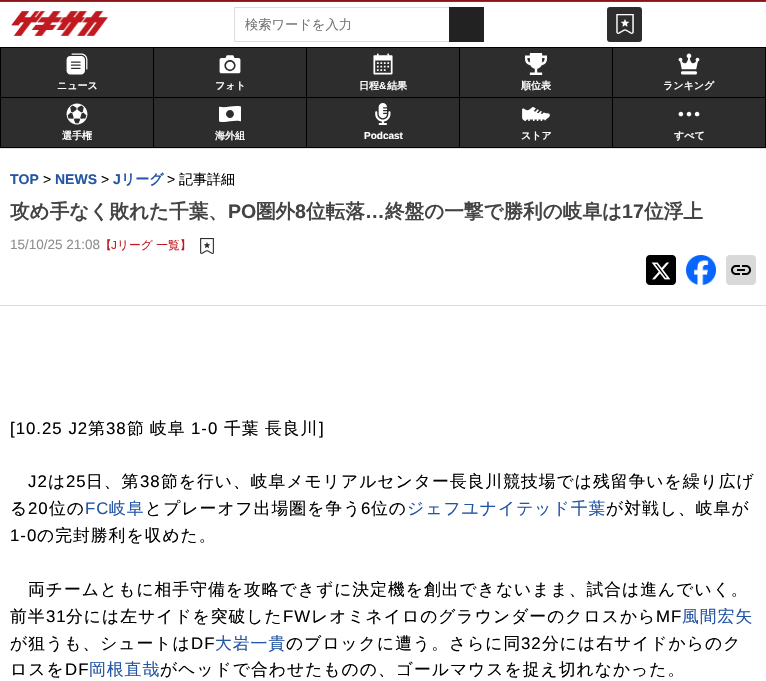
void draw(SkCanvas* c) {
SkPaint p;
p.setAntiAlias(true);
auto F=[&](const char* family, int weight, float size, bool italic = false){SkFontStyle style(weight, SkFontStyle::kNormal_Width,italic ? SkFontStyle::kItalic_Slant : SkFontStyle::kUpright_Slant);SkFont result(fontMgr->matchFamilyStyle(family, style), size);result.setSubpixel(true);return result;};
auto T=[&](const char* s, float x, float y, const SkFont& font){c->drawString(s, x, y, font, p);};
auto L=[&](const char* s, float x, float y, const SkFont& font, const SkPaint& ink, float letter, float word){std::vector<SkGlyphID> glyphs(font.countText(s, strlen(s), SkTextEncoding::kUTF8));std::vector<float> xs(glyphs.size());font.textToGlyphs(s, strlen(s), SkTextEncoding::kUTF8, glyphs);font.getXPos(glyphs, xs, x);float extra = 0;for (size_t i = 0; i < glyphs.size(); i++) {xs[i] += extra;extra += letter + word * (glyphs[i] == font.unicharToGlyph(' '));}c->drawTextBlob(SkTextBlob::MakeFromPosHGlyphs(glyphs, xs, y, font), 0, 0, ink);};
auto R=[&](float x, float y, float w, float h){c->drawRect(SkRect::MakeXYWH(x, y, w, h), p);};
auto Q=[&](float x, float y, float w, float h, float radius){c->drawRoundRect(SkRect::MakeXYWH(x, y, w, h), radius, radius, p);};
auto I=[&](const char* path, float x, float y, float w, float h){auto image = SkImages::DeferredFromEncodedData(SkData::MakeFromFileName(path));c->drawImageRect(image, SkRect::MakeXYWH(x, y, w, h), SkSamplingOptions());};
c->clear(0xffffffff);
p.setColor(0xffc01920);
R(0,0,766,2);
p.setColor(0x4d000000);
p.setMaskFilter(SkMaskFilter::MakeBlur(kNormal_SkBlurStyle, .5));
c->drawRect(SkRect::MakeXYWH(0,-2,766,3),p);
p.setMaskFilter(nullptr);
I("1.png",11,11,98,25);
p.setColor(0xffdddddd);
R(234,7,215,1);
R(234,41,215,1);
R(234,7,1,35);
auto f1 = F("WenQuanYi Zen Hei",500,13.25);
p.setColor(0xff757575);
T("検索ワードを入力",245,29,f1);
p.setColor(0xff222222);
R(449,7,35,35);
p.setColor(0xff2d2d2d);
Q(607,7,35,35,3);
I("2.png",616,14,18,20);
R(1,48,764,99);
p.setColor(0xff000000);
R(765,47,1,101);
R(0,147,766,1);
R(0,47,765,1);
R(0,47,1,50);
I("3.png",66,53,22,22);
auto f2 = F("WenQuanYi Zen Hei",700,10);
p.setColor(0xffffffff);
T("ニュース",57,89,f2);
p.setColor(0xff000000);
R(153,47,1,50);
I("4.png",219,55,22,19);
p.setColor(0xffffffff);
T("フォト",215,89,f2);
p.setColor(0xff000000);
R(306,47,1,50);
I("5.png",373,53,20,22);
p.setColor(0xffffffff);
T("日程",359,89,f2);
auto f3 = F("Liberation Sans",700,10);
T("&",379,89,f3);
T("結果",387,89,f2);
p.setColor(0xff000000);
R(459,47,1,50);
I("6.png",525,53,22,22);
p.setColor(0xffffffff);
T("順位表",521,89,f2);
p.setColor(0xff000000);
R(612,47,1,50);
I("7.png",678,53,22,22);
p.setColor(0xffffffff);
T("ランキング",663,89,f2);
p.setColor(0xff000000);
R(0,97,765,1);
R(0,97,1,50);
I("8.png",66,103,22,22);
p.setColor(0xffffffff);
T("選手権",62,139,f2);
p.setColor(0xff000000);
R(153,97,1,50);
I("9.png",219,106,22,16);
p.setColor(0xffffffff);
T("海外組",215,139,f2);
p.setColor(0xff000000);
R(306,97,1,50);
I("10.png",375,103,16,22);
p.setColor(0xffffffff);
T("Podcast",364,139,f3);
p.setColor(0xff000000);
R(459,97,1,50);
I("11.png",522,107,28,14);
p.setColor(0xffffffff);
T("ストア",521,139,f2);
p.setColor(0xff000000);
R(612,97,1,50);
I("12.png",678,111,22,6);
p.setColor(0xffffffff);
T("すべて",674,139,f2);
p.setColor(0xffdddddd);
R(0,148,766,1);
R(0,305,766,1);
auto f4 = F("Liberation Sans",700,14);
p.setColor(0xff2355a5);
T("TOP",10,184,f4);
auto f5 = F("Liberation Sans",400,14);
p.setColor(0xff000000);
T(">",43,184,f5);
p.setColor(0xff2355a5);
T("NEWS",55,184,f4);
p.setColor(0xff000000);
T(">",101,184,f5);
p.setColor(0xff2355a5);
T("J",113,184,f4);
auto f6 = F("WenQuanYi Zen Hei",700,14);
T("リーグ",121,184,f6);
p.setColor(0xff000000);
T(">",167,184,f5);
auto f7 = F("WenQuanYi Zen Hei",500,14);
T("記事詳細",179,184,f7);
auto f8 = F("WenQuanYi Zen Hei",700,19.6);
p.setColor(0xff444444);
T("攻め手なく敗れた千葉、",10,218,f8);
auto f9 = F("Liberation Sans",700,19.6);
T("PO",228,218,f9);
T("圏外",256,218,f8);
T("8",295,218,f9);
T("位転落",306,218,f8);
T("…",365,218,f9);
T("終盤の一撃で勝利の岐阜は",385,218,f8);
T("17",622,218,f9);
T("位浮上",644,218,f8);
auto f10 = F("Liberation Sans",400,13.5);
p.setColor(0xff8f8f8f);
T("15/10/25 21:08",10,249,f10);
auto f11 = F("WenQuanYi Zen Hei",500,11.75);
p.setColor(0xffc01920);
T("【",100,249,f11);
auto f12 = F("Liberation Sans",400,11.75);
T("J",111,249,f12);
T("リーグ 一覧】",117,249,f11);
I("13.png",200,238,14,16);
I("14.png",646,255,30,30);
I("15.png",686,255,30,30);
I("16.png",726,255,30,30);
auto f13 = F("Liberation Sans",400,16.8);
p.setColor(0xff000000);
L("[10.25 J2",10,434,f13,p,1,0);
auto f14 = F("WenQuanYi Zen Hei",500,16.8);
L("第",88,434,f14,p,1,0);
L("38",106,434,f13,p,1,0);
L("節",127,434,f14,p,1,0);
L("岐阜",150,434,f14,p,1,0);
L("1-0",191,434,f13,p,1,0);
L("千葉",224,434,f14,p,1,0);
L("長良川",265,434,f14,p,1,0);
L("]",319,434,f13,p,1,0);
L("J2",28,487,f13,p,1,0);
L("は",48,487,f14,p,1,0);
L("25",66,487,f13,p,1,0);
L("日、第",86,487,f14,p,1,0);
L("38",140,487,f13,p,1,0);
L("節を行い、岐阜メモリアルセンター長良川競技場では残留争いを繰り広げ",161,487,f14,p,1,0);
L("る",10,514,f14,p,1,0);
L("20",28,514,f13,p,1,0);
L("位の",49,514,f14,p,1,0);
p.setColor(0xff2355a5);
L("FC",85,514,f13,p,1,0);
L("岐阜",109,514,f14,p,1,0);
p.setColor(0xff000000);
L("とプレーオフ出場圏を争う",145,514,f14,p,1,0);
L("6",361,514,f13,p,1,0);
L("位の",371,514,f14,p,1,0);
p.setColor(0xff2355a5);
L("ジェフユナイテッド千葉",407,514,f14,p,1,0);
p.setColor(0xff000000);
L("が対戦し、岐阜が",606,514,f14,p,1,0);
L("1-0",10,541,f13,p,1,0);
L("の完封勝利を収めた。",37,541,f14,p,1,0);
L("両チームともに相手守備を攻略できずに決定機を創出できないまま、試合は進んでいく。",28,595,f14,p,1,0);
L("前半",10,622,f14,p,1,0);
L("31",46,622,f13,p,1,0);
L("分には左サイドを突破した",66,622,f14,p,1,0);
L("FW",283,622,f13,p,1,0);
L("レオミネイロのグラウンダーのクロスから",311,622,f14,p,1,0);
L("MF",656,622,f13,p,1,0);
p.setColor(0xff2355a5);
L("風間宏矢",682,622,f14,p,1,0);
p.setColor(0xff000000);
L("が狙うも、シュートは",10,649,f14,p,1,0);
L("DF",191,649,f13,p,1,0);
p.setColor(0xff2355a5);
L("大岩一貴",215,649,f14,p,1,0);
p.setColor(0xff000000);
L("のブロックに遭う。さらに同",286,649,f14,p,1,0);
L("32",521,649,f13,p,1,0);
L("分には右サイドからのク",542,649,f14,p,1,0);
L("ロスを",10,675,f14,p,1,0);
L("DF",65,675,f13,p,1,0);
p.setColor(0xff2355a5);
L("岡根直哉",89,675,f14,p,1,0);
p.setColor(0xff000000);
L("がヘッドで合わせたものの、ゴールマウスを捉え切れなかった。",160,675,f14,p,1,0);
}
